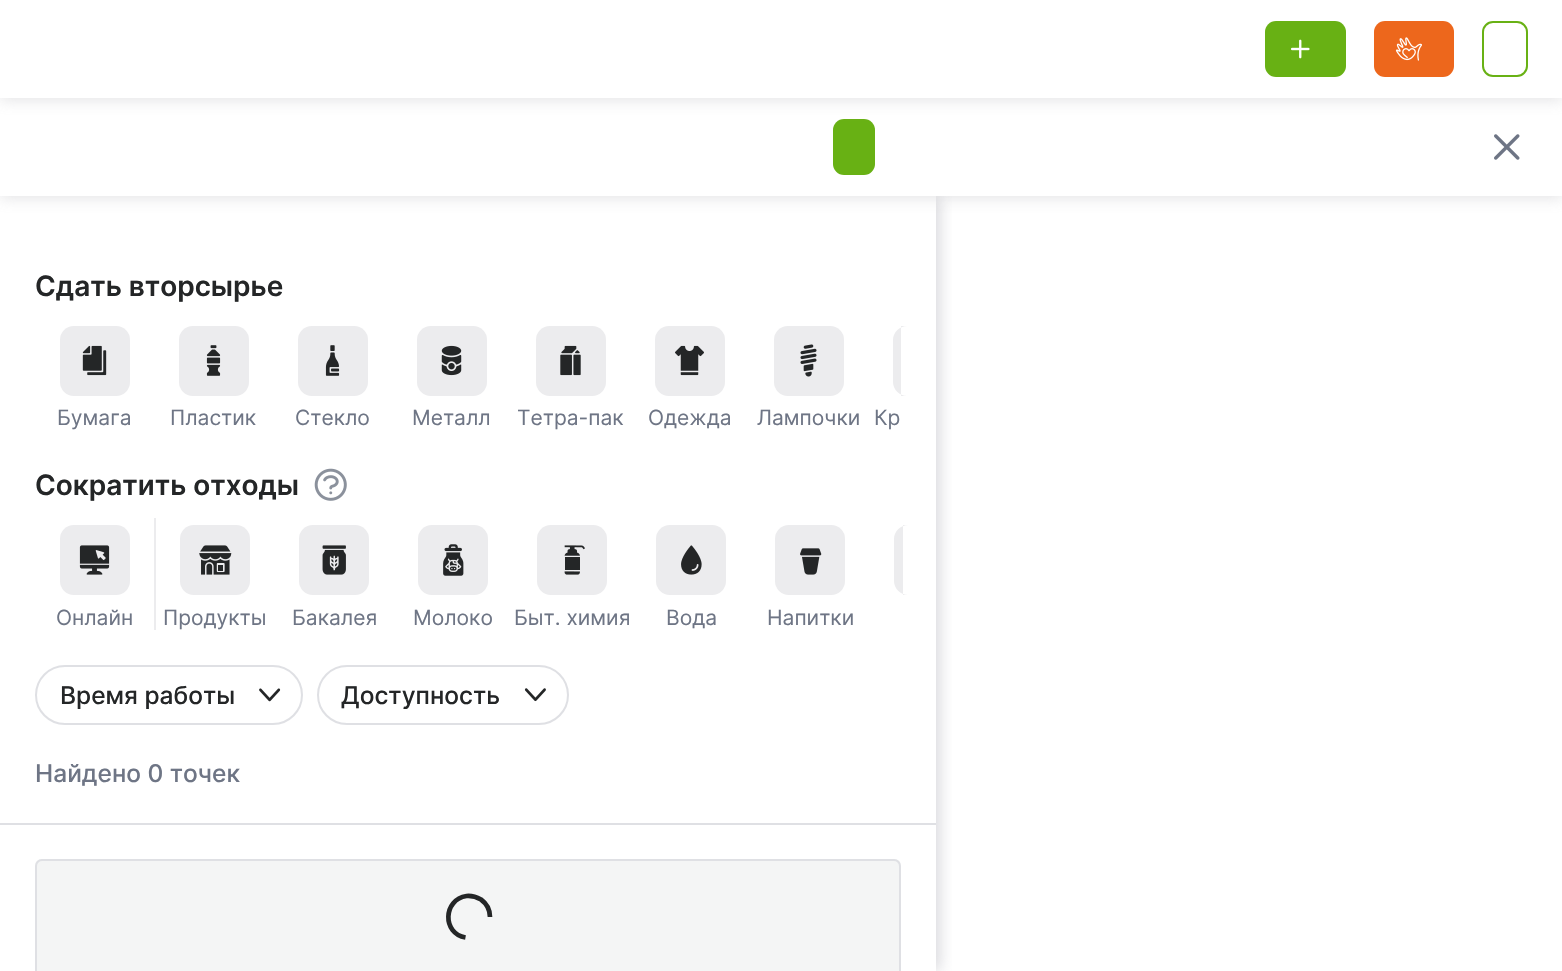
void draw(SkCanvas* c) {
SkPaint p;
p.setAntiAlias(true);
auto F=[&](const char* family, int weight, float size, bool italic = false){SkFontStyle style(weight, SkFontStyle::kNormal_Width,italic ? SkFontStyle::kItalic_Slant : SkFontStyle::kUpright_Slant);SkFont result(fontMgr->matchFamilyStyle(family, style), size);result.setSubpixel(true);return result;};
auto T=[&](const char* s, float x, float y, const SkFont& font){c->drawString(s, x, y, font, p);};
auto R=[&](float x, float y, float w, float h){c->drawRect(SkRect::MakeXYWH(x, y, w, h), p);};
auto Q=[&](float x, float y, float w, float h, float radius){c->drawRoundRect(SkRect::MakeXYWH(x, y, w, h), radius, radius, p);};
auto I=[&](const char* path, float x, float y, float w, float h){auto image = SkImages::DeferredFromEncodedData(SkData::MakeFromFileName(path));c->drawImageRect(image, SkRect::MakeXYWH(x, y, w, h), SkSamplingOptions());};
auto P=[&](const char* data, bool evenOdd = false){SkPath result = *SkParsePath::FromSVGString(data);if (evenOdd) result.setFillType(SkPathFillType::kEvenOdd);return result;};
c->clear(0xffffffff);
p.setColor(0x4da1a1aa);
p.setMaskFilter(SkMaskFilter::MakeBlur(kNormal_SkBlurStyle, 7));
c->drawRect(SkRect::MakeXYWH(0,100,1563,98),p);
p.setMaskFilter(nullptr);
c->save();
c->clipRect(SkRect::MakeXYWH(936,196,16,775));
p.setColor(0x66a1a1aa);
p.setMaskFilter(SkMaskFilter::MakeBlur(kNormal_SkBlurStyle, 7));
c->drawRect(SkRect::MakeXYWH(4,196,936,775),p);
p.setMaskFilter(nullptr);
c->restore();
p.setColor(0xffffffff);
R(0,98,1562,98);
p.setColor(0xff68b114);
Q(833,119,42,56,11);
p.setColor(0x4da1a1aa);
p.setMaskFilter(SkMaskFilter::MakeBlur(kNormal_SkBlurStyle, 7));
c->drawRect(SkRect::MakeXYWH(0,2,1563,98),p);
p.setMaskFilter(nullptr);
p.setColor(0xffffffff);
R(0,0,1562,98);
p.setColor(0xff68b114);
Q(1265,21,81,56,11);
I("1.png",1291,39,19,20);
p.setColor(0xffed671c);
Q(1374,21,80,56,11);
I("2.png",1395,37,27,24);
p.setStroke(true);
p.setStrokeWidth(2);
p.setColor(0xff68b114);
c->drawRoundRect(SkRect::MakeXYWH(1483,22,44,54),10,10,p);
I("3.png",1494,134,26,26);
p.setStroke(false);
p.setColor(0xffdfe0e4);
R(0,823,936,2);
auto f1 = F("Inter",600,28);
p.setColor(0xff242627);
T("Сдать вторсырье",35,296,f1);
p.setColor(0xffececee);
Q(60,326,70,70,14);
I("4.png",82,345,25,31);
auto f2 = F("Inter",400,21);
p.setColor(0xff6e7585);
T("Бумага",57,425,f2);
p.setColor(0xffececee);
Q(179,326,70,70,14);
I("5.png",206,345,15,31);
p.setColor(0xff6e7585);
T("Пластик",170,425,f2);
p.setColor(0xffececee);
Q(298,326,70,70,14);
I("6.png",325,345,15,31);
p.setColor(0xff6e7585);
T("Стекло",295,425,f2);
p.setColor(0xffececee);
Q(417,326,70,70,14);
I("7.png",441,345,21,31);
p.setColor(0xff6e7585);
T("Металл",412,425,f2);
p.setColor(0xffececee);
Q(536,326,70,70,14);
I("8.png",560,345,21,31);
p.setColor(0xff6e7585);
T("Тетра-пак",517,425,f2);
p.setColor(0xffececee);
Q(655,326,70,70,14);
I("9.png",675,345,29,31);
p.setColor(0xff6e7585);
T("Одежда",648,425,f2);
p.setColor(0xffececee);
Q(774,326,70,70,14);
I("10.png",800,344,17,33);
p.setColor(0xff6e7585);
T("Лампочки",757,425,f2);
p.setColor(0xffececee);
c->drawPath(P("M907 326h-6v70h6c-7.5 0-14-6.5-14-14v-42c0-7.5 6.5-14 14-14z"),p);
p.setColor(0xff6e7585);
T("Кр",874,425,f2);
p.setColor(0xff242627);
T("Сократить отходы",35,495,f1);
I("11.png",314,468,33,33);
p.setColor(0xffececee);
Q(60,525,70,70,14);
I("12.png",79,545,31,30);
p.setColor(0xff6e7585);
T("Онлайн",56,625,f2);
p.setColor(0xffececee);
R(154,518,2,112);
c->drawPath(P("M908 525h-5v70h5c-7.5 0-14-6.5-14-14v-42c0-7.5 6.5-14 14-14z"),p);
Q(180,525,70,70,14);
I("13.png",199,545,33,30);
p.setColor(0xff6e7585);
T("Продукты",163,625,f2);
p.setColor(0xffececee);
Q(299,525,70,70,14);
I("14.png",322,545,24,30);
p.setColor(0xff6e7585);
T("Бакалея",292,625,f2);
p.setColor(0xffececee);
Q(418,525,70,70,14);
I("15.png",443,544,21,32);
p.setColor(0xff6e7585);
T("Молоко",413,625,f2);
p.setColor(0xffececee);
Q(537,525,70,70,14);
I("16.png",564,545,21,30);
p.setColor(0xff6e7585);
T("Быт. химия",514,625,f2);
p.setColor(0xffececee);
Q(656,525,70,70,14);
I("17.png",681,545,21,30);
p.setColor(0xff6e7585);
T("Вода",666,625,f2);
p.setColor(0xffececee);
Q(775,525,70,70,14);
I("18.png",800,548,22,27);
p.setColor(0xff6e7585);
T("Напитки",767,625,f2);
p.setStroke(true);
p.setColor(0xffdfe0e4);
c->drawRoundRect(SkRect::MakeXYWH(36,666,266,58),29,29,p);
auto f3 = F("Inter",500,24.5);
p.setStroke(false);
p.setColor(0xff242627);
T("Время работы",60,704,f3);
I("19.png",259,688,22,14);
p.setStroke(true);
p.setColor(0xffdfe0e4);
c->drawRoundRect(SkRect::MakeXYWH(318,666,250,58),29,29,p);
p.setStroke(false);
p.setColor(0xff242627);
T("Доступность",341,704,f3);
I("20.png",524,688,22,14);
p.setColor(0xff6e7585);
T("Найдено 0 точек",35,782,f3);
p.setColor(0xfff4f5f5);
c->drawPath(P("M42 859h852c4 0 7 3 7 7v105h-866v-105c0-4 3-7 7-7z"),p);
p.setStroke(true);
p.setColor(0xffdfe0e4);
c->drawRoundRect(SkRect::MakeXYWH(36,860,864,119),6,6,p);
p.setStrokeWidth(4.7);
p.setColor(0xff242627);
c->drawPath(P("M490 917c0-7-3.5-13.5-9-17.5c-4.5-2.5-9.5-4-14.5-3.5c-23.5 3.5-24.5 37.5-1 41.5"),p);
}
